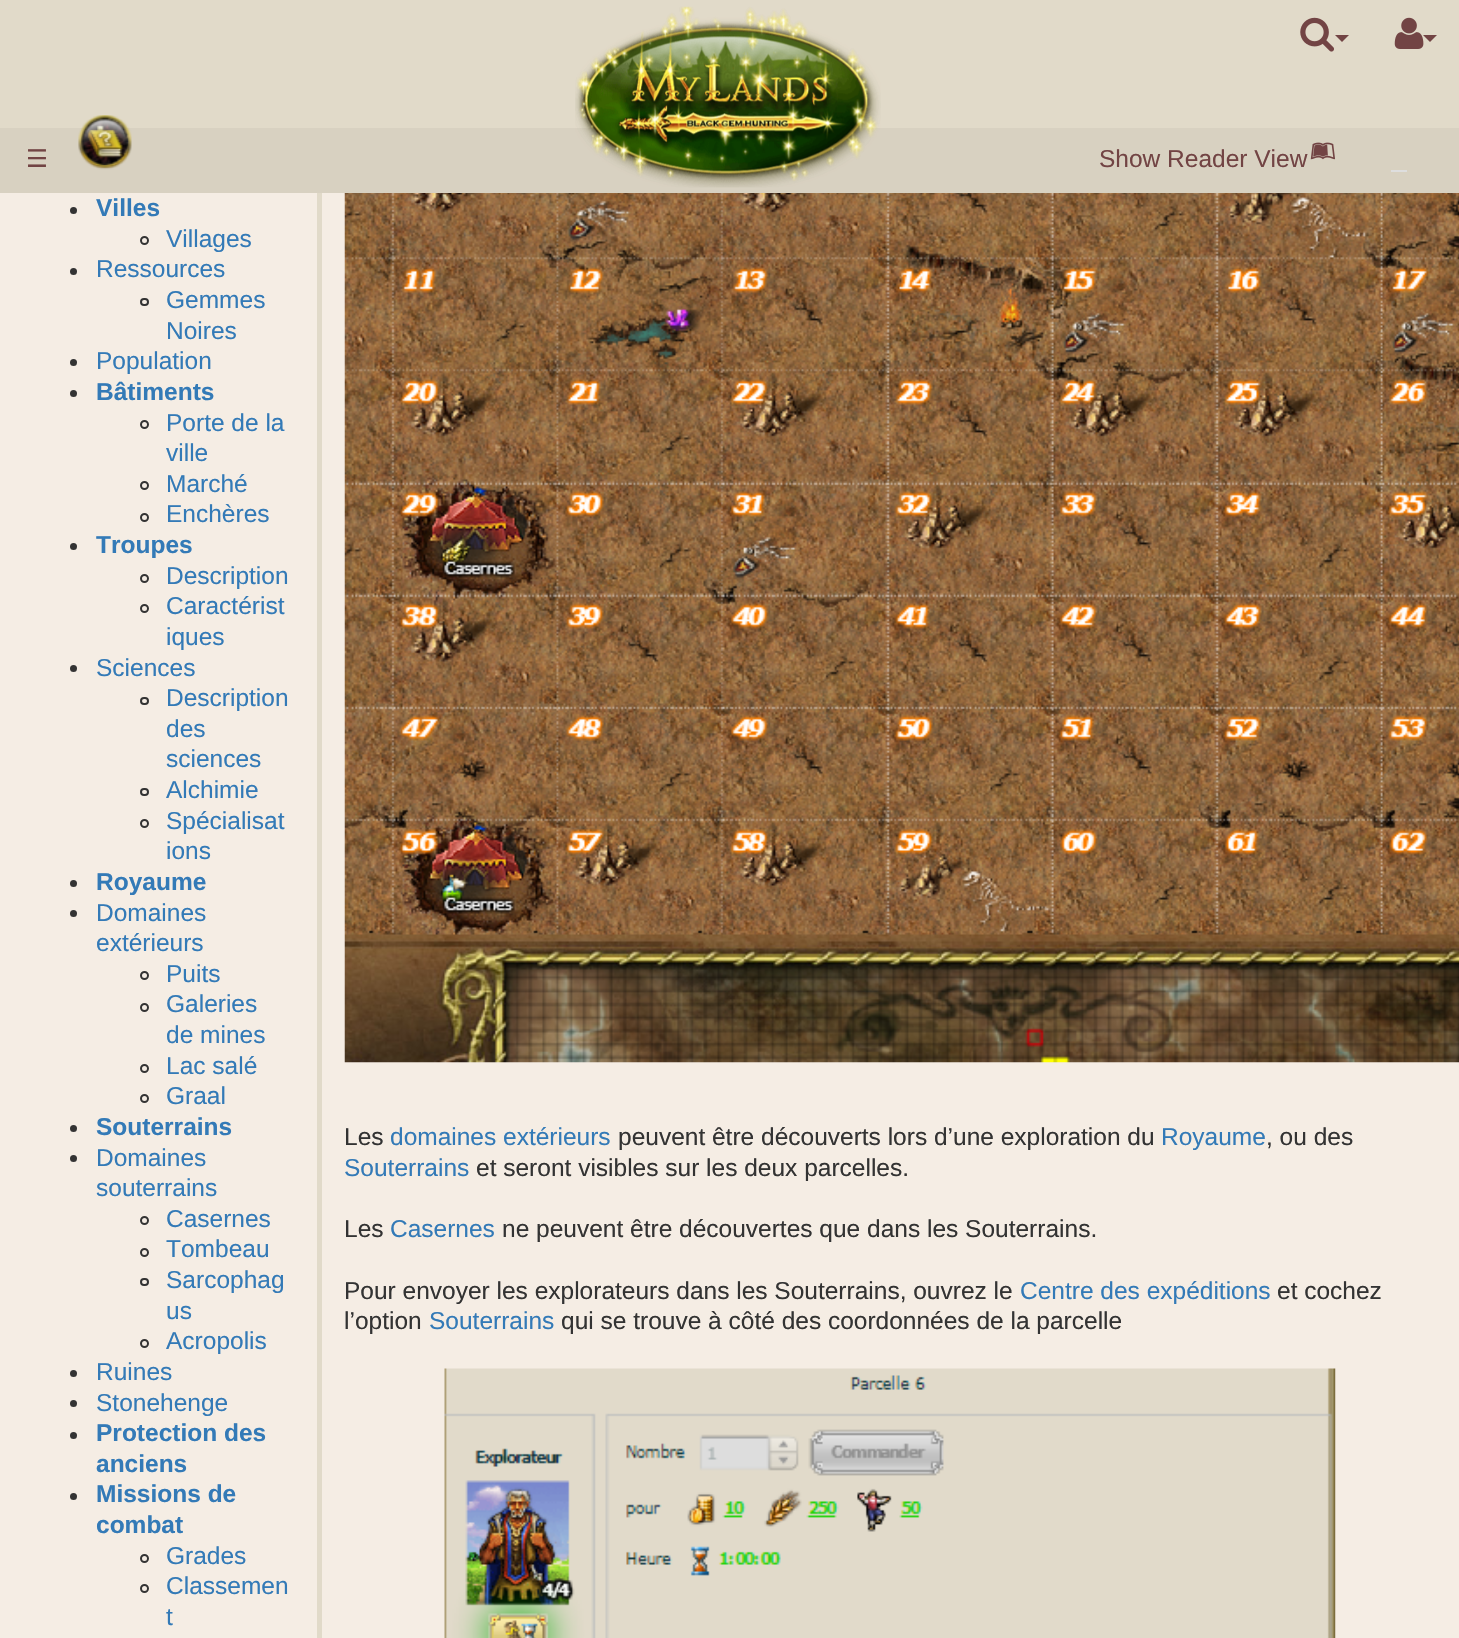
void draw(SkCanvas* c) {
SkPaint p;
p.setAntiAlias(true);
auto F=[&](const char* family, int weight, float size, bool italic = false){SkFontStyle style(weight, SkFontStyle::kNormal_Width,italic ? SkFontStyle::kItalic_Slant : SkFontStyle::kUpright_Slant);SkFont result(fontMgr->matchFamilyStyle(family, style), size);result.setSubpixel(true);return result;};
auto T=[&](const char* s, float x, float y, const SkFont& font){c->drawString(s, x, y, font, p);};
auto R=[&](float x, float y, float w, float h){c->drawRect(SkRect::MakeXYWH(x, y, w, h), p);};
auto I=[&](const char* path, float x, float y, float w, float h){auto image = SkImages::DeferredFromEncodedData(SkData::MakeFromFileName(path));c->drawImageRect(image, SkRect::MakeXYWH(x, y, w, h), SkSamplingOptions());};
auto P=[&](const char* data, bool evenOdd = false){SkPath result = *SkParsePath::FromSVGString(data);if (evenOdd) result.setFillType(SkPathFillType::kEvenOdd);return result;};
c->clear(0xfff5ede4);
p.setColor(0xffe1dac9);
R(0,0,1459,128);
p.setColor(0xffd8d1c1);
R(0,128,1459,65);
I("1.png",575,6,306,182);
I("2.png",1300,17,34,35);
p.setColor(0xff724444);
c->drawPath(P("M1335 35h14l-7 7z"),p);
c->drawPath(P("M1423 35h14l-7 7z"),p);
I("3.png",1394,17,30,32);
auto f1 = F("DejaVu Sans",400,24.5);
T("☰",26,167,f1);
I("4.png",78,115,54,55);
auto f2 = F("Liberation Sans",400,24.5);
T("Show Reader View",1099,167,f2);
I("5.png",1310,142,25,18);
p.setColor(0xffdedede);
R(1391,170,16,2);
p.setColor(0xff333333);
c->drawCircle(73.5,210.5,3.5,p);
auto f3 = F("Liberation Sans",700,24.5);
p.setColor(0xff337ab7);
T("Villes",96,216,f3);
p.setStroke(true);
p.setStrokeWidth(2);
p.setColor(0xff333333);
c->drawCircle(144.5,240.5,3.5,p);
p.setStroke(false);
p.setColor(0xff337ab7);
T("Villages",166,247,f2);
p.setColor(0xff333333);
c->drawCircle(73.5,271.5,3.5,p);
p.setColor(0xff337ab7);
T("Ressources",96,277,f2);
p.setStroke(true);
p.setColor(0xff333333);
c->drawRoundRect(SkRect::MakeXYWH(141,299,7,6),3,3,p);
p.setStroke(false);
p.setColor(0xff337ab7);
T("Gemmes",166,308,f2);
T("Noires",166,339,f2);
p.setColor(0xff333333);
c->drawCircle(73.5,362.5,3.5,p);
p.setColor(0xff337ab7);
T("Population",96,369,f2);
p.setColor(0xff333333);
c->drawCircle(73.5,393.5,3.5,p);
p.setColor(0xff337ab7);
T("Bâtiments",96,400,f3);
p.setStroke(true);
p.setColor(0xff333333);
c->drawCircle(144.5,424.5,3.5,p);
p.setStroke(false);
p.setColor(0xff337ab7);
T("Porte de la",166,431,f2);
T("ville",166,461,f2);
p.setStroke(true);
p.setColor(0xff333333);
c->drawCircle(144.5,485.5,3.5,p);
p.setStroke(false);
p.setColor(0xff337ab7);
T("Marché",166,492,f2);
p.setStroke(true);
p.setColor(0xff333333);
c->drawCircle(144.5,517.5,3.5,p);
p.setStroke(false);
p.setColor(0xff337ab7);
T("Enchères",166,522,f2);
p.setColor(0xff333333);
c->drawCircle(73.5,546.5,3.5,p);
p.setColor(0xff337ab7);
T("Troupes",96,553,f3);
p.setStroke(true);
p.setColor(0xff333333);
c->drawCircle(144.5,578.5,3.5,p);
p.setStroke(false);
p.setColor(0xff337ab7);
T("Description",166,584,f2);
p.setStroke(true);
p.setColor(0xff333333);
c->drawCircle(144.5,608.5,3.5,p);
p.setStroke(false);
p.setColor(0xff337ab7);
T("Caractérist",166,614,f2);
T("iques",166,645,f2);
p.setColor(0xff333333);
c->drawCircle(73.5,668.5,3.5,p);
p.setColor(0xff337ab7);
T("Sciences",96,676,f2);
p.setStroke(true);
p.setColor(0xff333333);
c->drawRoundRect(SkRect::MakeXYWH(141,698,7,6),3,3,p);
p.setStroke(false);
p.setColor(0xff337ab7);
T("Description",166,706,f2);
T("des",166,737,f2);
T("sciences",166,767,f2);
p.setStroke(true);
p.setColor(0xff333333);
c->drawRoundRect(SkRect::MakeXYWH(141,789,7,6),3,3,p);
p.setStroke(false);
p.setColor(0xff337ab7);
T("Alchimie",166,798,f2);
p.setStroke(true);
p.setColor(0xff333333);
c->drawCircle(144.5,823.5,3.5,p);
p.setStroke(false);
p.setColor(0xff337ab7);
T("Spécialisat",166,829,f2);
T("ions",166,859,f2);
p.setColor(0xff333333);
c->drawCircle(73.5,883.5,3.5,p);
p.setColor(0xff337ab7);
T("Royaume",96,890,f3);
p.setColor(0xff333333);
c->drawCircle(73.5,913.5,3.5,p);
p.setColor(0xff337ab7);
T("Domaines",96,921,f2);
T("extérieurs",96,951,f2);
p.setStroke(true);
p.setColor(0xff333333);
c->drawCircle(144.5,975.5,3.5,p);
p.setStroke(false);
p.setColor(0xff337ab7);
T("Puits",166,982,f2);
p.setStroke(true);
p.setColor(0xff333333);
c->drawCircle(144.5,1007.5,3.5,p);
p.setStroke(false);
p.setColor(0xff337ab7);
T("Galeries",166,1012,f2);
T("de mines",166,1043,f2);
p.setStroke(true);
p.setColor(0xff333333);
c->drawCircle(144.5,1068.5,3.5,p);
p.setStroke(false);
p.setColor(0xff337ab7);
T("Lac salé",166,1074,f2);
p.setStroke(true);
p.setColor(0xff333333);
c->drawCircle(144.5,1098.5,3.5,p);
p.setStroke(false);
p.setColor(0xff337ab7);
T("Graal",166,1104,f2);
p.setColor(0xff333333);
c->drawCircle(73.5,1128.5,3.5,p);
p.setColor(0xff337ab7);
T("Souterrains",96,1135,f3);
p.setColor(0xff333333);
c->drawCircle(73.5,1158.5,3.5,p);
p.setColor(0xff337ab7);
T("Domaines",96,1166,f2);
T("souterrains",96,1196,f2);
p.setStroke(true);
p.setColor(0xff333333);
c->drawCircle(144.5,1220.5,3.5,p);
p.setStroke(false);
p.setColor(0xff337ab7);
T("Casernes",166,1227,f2);
p.setStroke(true);
p.setColor(0xff333333);
c->drawCircle(144.5,1252.5,3.5,p);
p.setStroke(false);
p.setColor(0xff337ab7);
T("Tombeau",166,1257,f2);
p.setStroke(true);
p.setColor(0xff333333);
c->drawRoundRect(SkRect::MakeXYWH(141,1279,7,6),3,3,p);
p.setStroke(false);
p.setColor(0xff337ab7);
T("Sarcophag",166,1288,f2);
T("us",166,1319,f2);
p.setStroke(true);
p.setColor(0xff333333);
c->drawCircle(144.5,1343.5,3.5,p);
p.setStroke(false);
p.setColor(0xff337ab7);
T("Acropolis",166,1349,f2);
p.setColor(0xff333333);
c->drawCircle(73.5,1373.5,3.5,p);
p.setColor(0xff337ab7);
T("Ruines",96,1380,f2);
p.setColor(0xff333333);
c->drawCircle(73.5,1403.5,3.5,p);
p.setColor(0xff337ab7);
T("Stonehenge",96,1411,f2);
p.setColor(0xff333333);
c->drawCircle(73.5,1435.5,3.5,p);
p.setColor(0xff337ab7);
T("Protection des",96,1441,f3);
T("anciens",96,1472,f3);
p.setColor(0xff333333);
c->drawCircle(73.5,1496.5,3.5,p);
p.setColor(0xff337ab7);
T("Missions de",96,1502,f3);
T("combat",96,1533,f3);
p.setStroke(true);
p.setColor(0xff333333);
c->drawCircle(144.5,1558.5,3.5,p);
p.setStroke(false);
p.setColor(0xff337ab7);
T("Grades",166,1564,f2);
p.setStroke(true);
p.setColor(0xff333333);
c->drawCircle(144.5,1588.5,3.5,p);
p.setStroke(false);
p.setColor(0xff337ab7);
T("Classemen",166,1594,f2);
T("t",166,1625,f2);
p.setColor(0xffe1dac9);
R(317,193,5,1445);
I("6.png",344,193,1115,870);
p.setColor(0xff333333);
T("Les",344,1145,f2);
p.setColor(0xff337ab7);
T("domaines extérieurs",390,1145,f2);
p.setColor(0xff333333);
T("peuvent être découverts lors d’une exploration du",618,1145,f2);
p.setColor(0xff337ab7);
T("Royaume",1161,1145,f2);
p.setColor(0xff333333);
T(", ou des",1266,1145,f2);
p.setColor(0xff337ab7);
T("Souterrains",344,1176,f2);
p.setColor(0xff333333);
T("et seront visibles sur les deux parcelles.",476,1176,f2);
T("Les",344,1237,f2);
p.setColor(0xff337ab7);
T("Casernes",390,1237,f2);
p.setColor(0xff333333);
T("ne peuvent être découvertes que dans les Souterrains.",502,1237,f2);
T("Pour envoyer les explorateurs dans les Souterrains, ouvrez le",344,1299,f2);
p.setColor(0xff337ab7);
T("Centre des expéditions",1020,1299,f2);
p.setColor(0xff333333);
T("et cochez",1277,1299,f2);
T("l’option",344,1329,f2);
p.setColor(0xff337ab7);
T("Souterrains",429,1329,f2);
p.setColor(0xff333333);
T("qui se trouve à côté des coordonnées de la parcelle",561,1329,f2);
I("7.png",444,1368,892,270);
}
